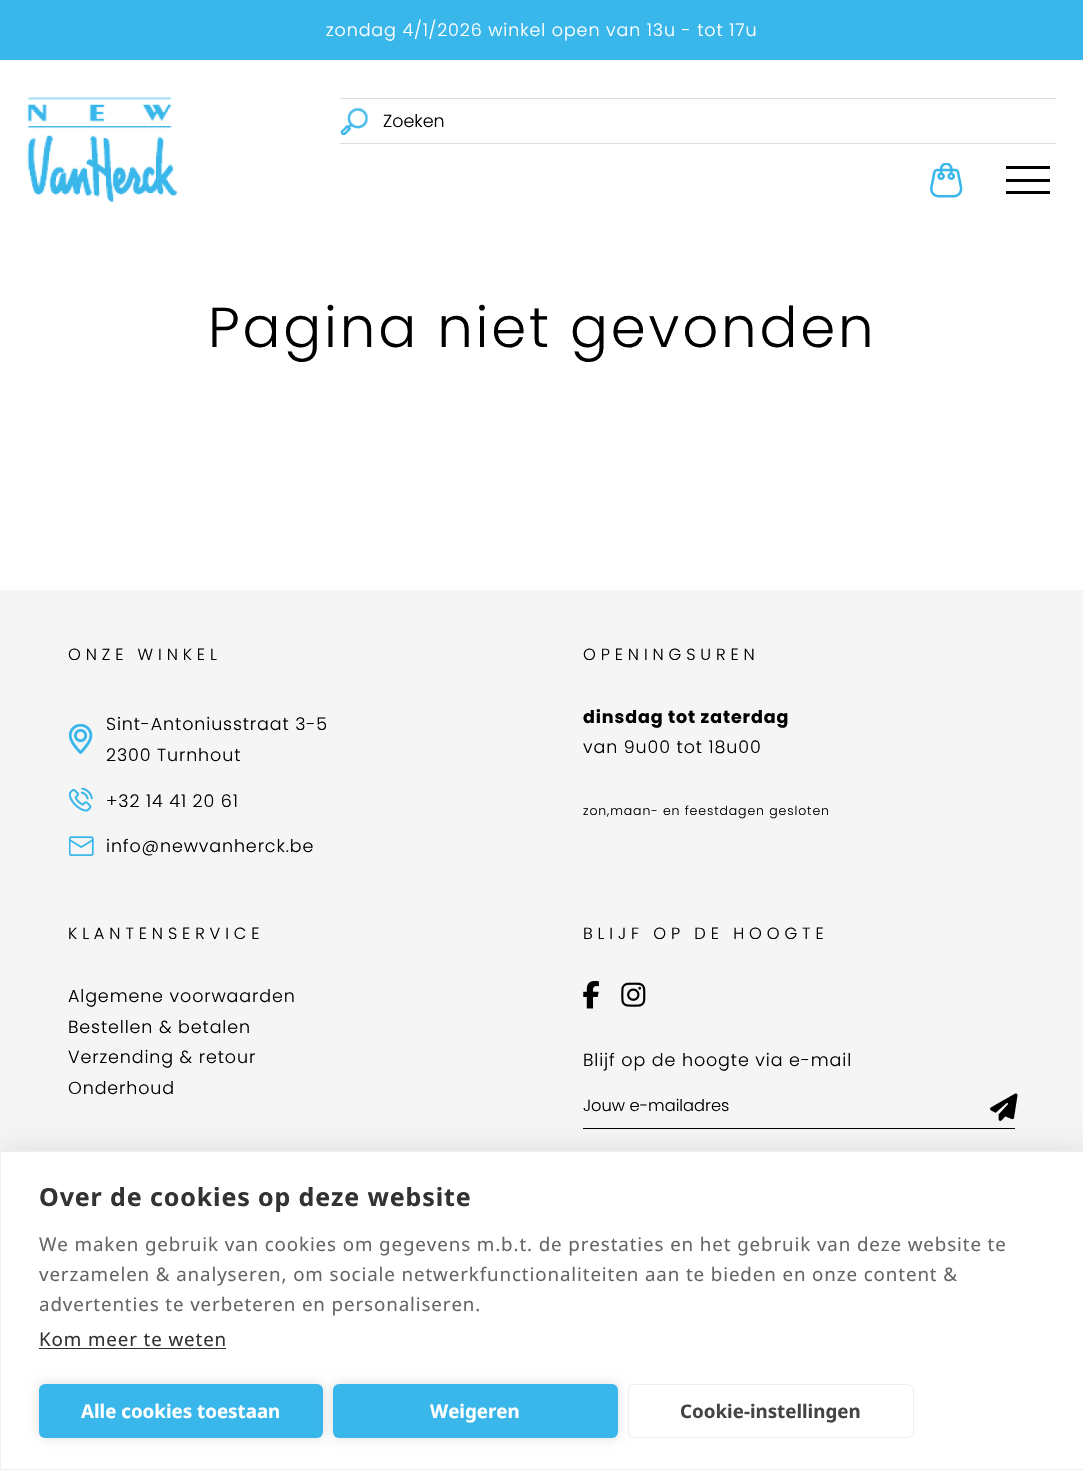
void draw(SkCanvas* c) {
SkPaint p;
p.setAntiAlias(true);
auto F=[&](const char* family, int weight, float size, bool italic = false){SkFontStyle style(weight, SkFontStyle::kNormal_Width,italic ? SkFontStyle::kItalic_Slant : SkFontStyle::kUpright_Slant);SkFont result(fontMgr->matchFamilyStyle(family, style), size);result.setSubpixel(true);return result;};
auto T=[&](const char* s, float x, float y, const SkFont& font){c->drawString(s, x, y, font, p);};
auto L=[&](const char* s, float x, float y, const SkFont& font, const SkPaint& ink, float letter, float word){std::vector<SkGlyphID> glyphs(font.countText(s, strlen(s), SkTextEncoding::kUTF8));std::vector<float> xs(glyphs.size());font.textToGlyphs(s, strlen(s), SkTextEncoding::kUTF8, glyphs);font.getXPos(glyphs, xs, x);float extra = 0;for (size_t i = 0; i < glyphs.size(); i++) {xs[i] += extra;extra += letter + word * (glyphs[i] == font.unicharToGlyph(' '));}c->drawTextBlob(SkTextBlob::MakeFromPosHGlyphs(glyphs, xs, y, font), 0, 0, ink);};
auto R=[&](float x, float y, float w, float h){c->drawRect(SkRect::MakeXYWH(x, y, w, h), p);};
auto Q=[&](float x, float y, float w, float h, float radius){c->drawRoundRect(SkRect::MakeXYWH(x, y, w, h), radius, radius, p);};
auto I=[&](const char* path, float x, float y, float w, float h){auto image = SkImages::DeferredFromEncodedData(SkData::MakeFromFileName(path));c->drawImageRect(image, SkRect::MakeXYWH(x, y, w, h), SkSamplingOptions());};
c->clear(0xffffffff);
p.setColor(0xff39b6ea);
R(0,0,1083,60);
auto f1 = F("Poppins",300,17.5);
p.setColor(0xffffffff);
L("zondag 4/1/2026 winkel open van 13u - tot 17u",326,36,f1,p,.88,0);
I("1.png",27,97,151,106);
I("2.png",340,107,28,28);
p.setColor(0xffdddddd);
R(340,98,716,1);
R(340,143,716,1);
p.setColor(0xff000000);
T("Zoeken",383,127,f1);
I("3.png",930,163,33,35);
R(1006,179,44,3);
R(1006,166,44,3);
R(1006,191,44,3);
auto f2 = F("Poppins",300,56.25);
L("Pagina niet gevonden",208,347,f2,p,2.8,0);
p.setColor(0xfff5f5f5);
R(0,590,1083,561);
auto f3 = F("Poppins",300,16.25);
p.setColor(0xff000000);
L("ONZE WINKEL",68,660,f3,p,4.9,0);
I("4.png",69,724,24,30);
L("Sint-Antoniusstraat 3-5",106,730,f1,p,.88,0);
L("2300 Turnhout",106,761,f1,p,.88,0);
I("5.png",69,788,24,24);
L("+32 14 41 20 61",106,807,f1,p,.88,0);
I("6.png",69,836,25,20);
L("info@newvanherck.be",106,852,f1,p,.88,0);
L("OPENINGSUREN",583,660,f3,p,4.9,0);
auto f4 = F("Poppins",700,17.5);
L("dinsdag tot zaterdag",583,723,f4,p,.88,0);
L("van 9u00 tot 18u00",583,753,f1,p,.88,0);
auto f5 = F("Poppins",300,12.5);
L("zon,maan- en feestdagen gesloten",583,815,f5,p,.88,0);
L("KLANTENSERVICE",68,939,f3,p,4.9,0);
L("Algemene voorwaarden",68,1002,f1,p,.88,0);
L("Bestellen & betalen",68,1033,f1,p,.88,0);
L("Verzending & retour",68,1063,f1,p,.88,0);
L("Onderhoud",68,1094,f1,p,.88,0);
L("BLIJF OP DE HOOGTE",583,939,f3,p,4.9,0);
I("7.png",583,980,16,29);
I("8.png",621,982,25,25);
L("Blijf op de hoogte via e-mail",583,1066,f1,p,.88,0);
R(583,1128,432,1);
T("Jouw e-mailadres",583,1111,f3);
I("9.png",990,1093,28,28);
p.setColor(0x1a000000);
p.setMaskFilter(SkMaskFilter::MakeBlur(kNormal_SkBlurStyle, 12.5));
c->drawRect(SkRect::MakeXYWH(0,1151,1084,319),p);
p.setMaskFilter(nullptr);
p.setColor(0xffffffff);
c->drawRect(SkRect::MakeXYWH(.5,1151.5,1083,318),p);
p.setStroke(true);
p.setStrokeWidth(1);
p.setColor(0xffeeeeee);
c->drawRect(SkRect::MakeXYWH(.5,1151.5,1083,318),p);
auto f6 = F("Noto Sans",700,25);
p.setStroke(false);
p.setColor(0xff333333);
L("Over de cookies op deze website",39,1206,f6,p,.88,0);
auto f7 = F("Noto Sans",400,18.75);
p.setColor(0xff666666);
L("We maken gebruik van cookies om gegevens m.b.t. de prestaties en het gebruik van deze website te",39,1251,f7,p,.88,0);
L("verzamelen & analyseren, om sociale netwerkfunctionaliteiten aan te bieden en onze content &",39,1281,f7,p,.88,0);
L("advertenties te verbeteren en personaliseren.",39,1311,f7,p,.88,0);
p.setColor(0xff333333);
L("Kom meer te weten",39,1346,f7,p,.88,0);
R(39,1348,187,1);
p.setColor(0x1f000000);
p.setMaskFilter(SkMaskFilter::MakeBlur(kNormal_SkBlurStyle, 6));
c->drawRoundRect(SkRect::MakeXYWH(39,1384,284,54),6,6,p);
p.setMaskFilter(nullptr);
p.setColor(0xff39b6ea);
Q(39,1384,284,54,6);
auto f8 = F("Noto Sans",700,18.75);
p.setColor(0xffffffff);
T("Alle cookies toestaan",81,1418,f8);
p.setColor(0x1f000000);
p.setMaskFilter(SkMaskFilter::MakeBlur(kNormal_SkBlurStyle, 6));
c->drawRoundRect(SkRect::MakeXYWH(333,1384,285,54),6,6,p);
p.setMaskFilter(nullptr);
p.setColor(0xff39b6ea);
Q(333,1384,285,54,6);
p.setColor(0xffffffff);
T("Weigeren",430,1418,f8);
p.setStroke(true);
p.setColor(0xffeeeeee);
c->drawRoundRect(SkRect::MakeXYWH(628.5,1384.5,285,53),5.5,5.5,p);
p.setStroke(false);
p.setColor(0xff444444);
T("Cookie-instellingen",680,1418,f8);
}
